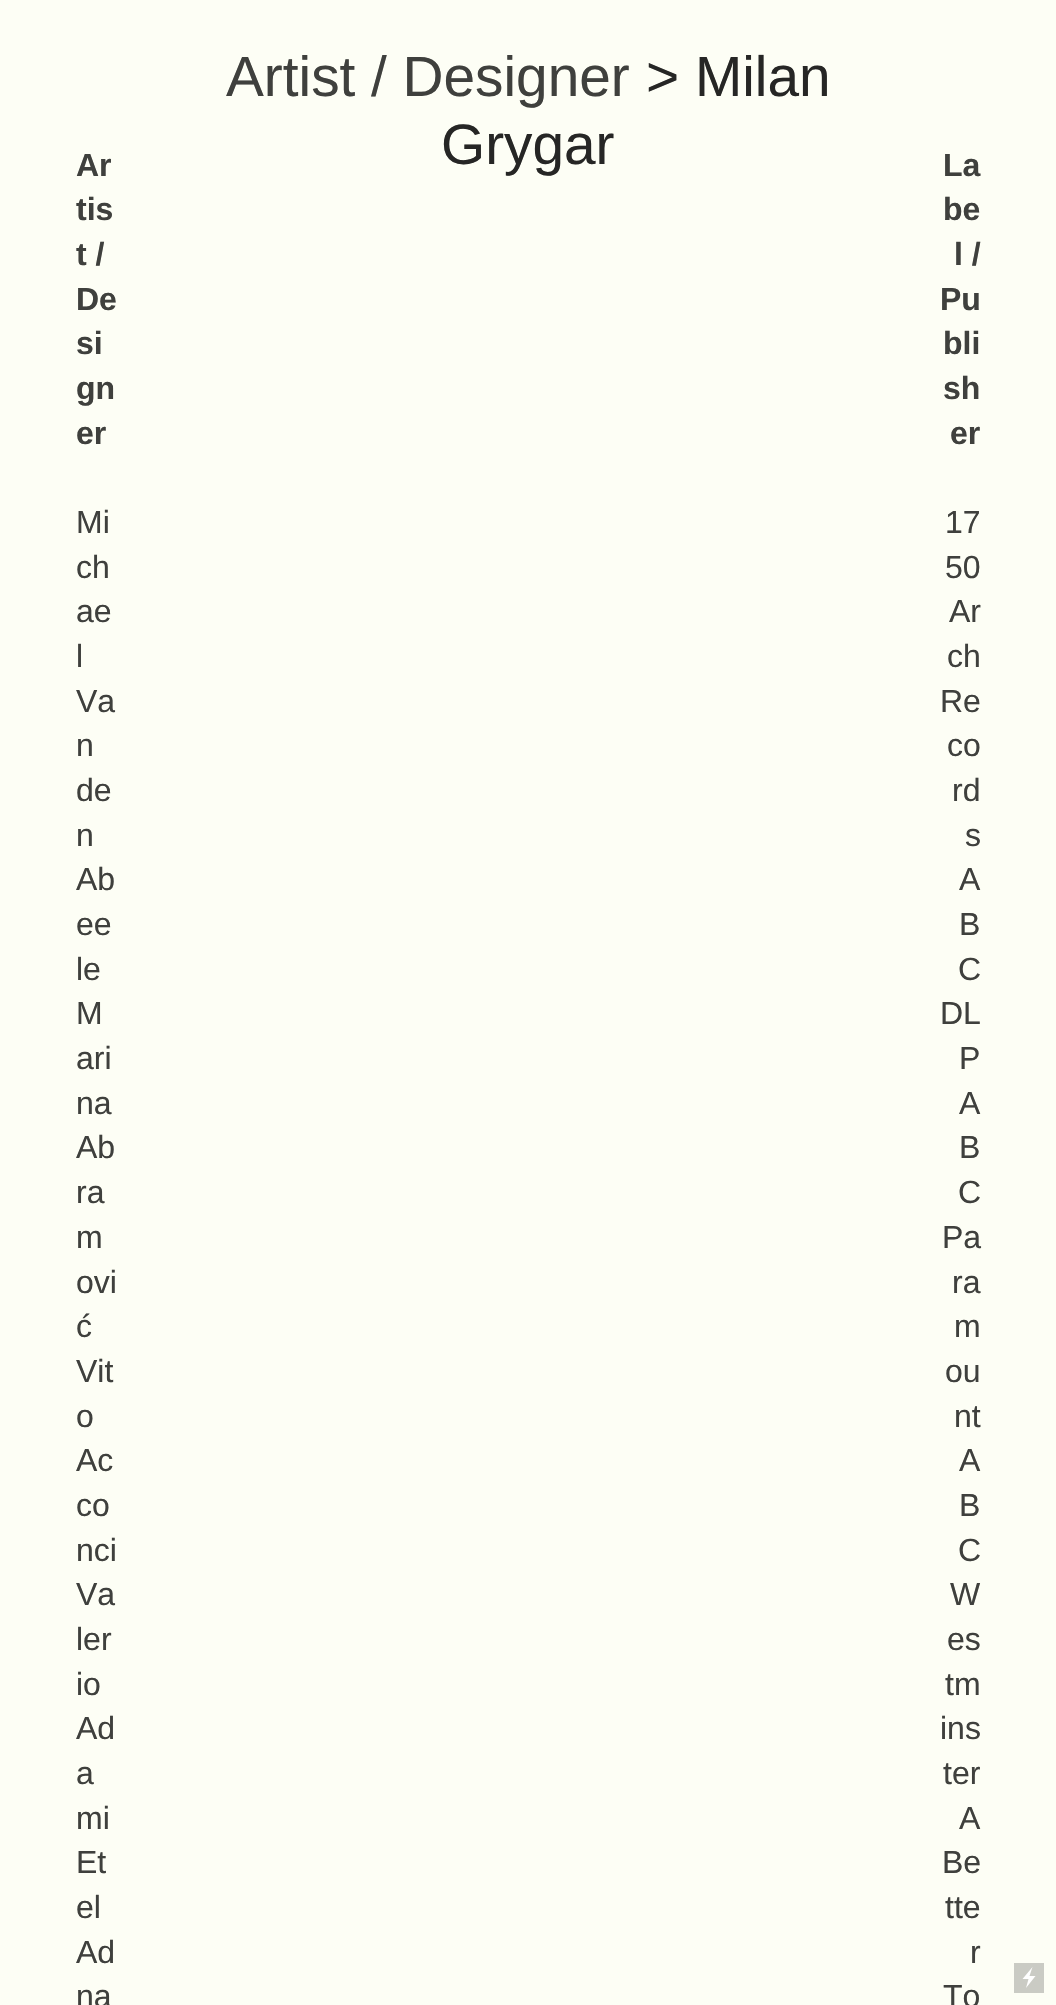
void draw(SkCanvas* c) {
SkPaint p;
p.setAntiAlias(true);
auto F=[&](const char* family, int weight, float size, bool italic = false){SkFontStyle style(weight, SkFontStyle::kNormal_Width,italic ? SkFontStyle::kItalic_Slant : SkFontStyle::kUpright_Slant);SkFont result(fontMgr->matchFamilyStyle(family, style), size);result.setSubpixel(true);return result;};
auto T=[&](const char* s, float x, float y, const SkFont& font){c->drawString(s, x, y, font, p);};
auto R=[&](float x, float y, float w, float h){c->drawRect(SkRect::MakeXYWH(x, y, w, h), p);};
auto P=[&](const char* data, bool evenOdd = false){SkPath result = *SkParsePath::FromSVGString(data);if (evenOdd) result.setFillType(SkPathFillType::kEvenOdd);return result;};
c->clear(0xfffdfef5);
auto f1 = F("Liberation Sans",400,56.75);
p.setColor(0xff3f403d);
T("Artist / Designer",226,96,f1);
p.setColor(0xff262625);
T("> Milan",646,96,f1);
T("Grygar",441,164,f1);
auto f2 = F("Liberation Sans",700,32);
p.setColor(0xff3f403d);
T("Ar",76,176,f2);
T("tis",76,220,f2);
T("t /",76,265,f2);
T("De",76,310,f2);
T("si",76,354,f2);
T("gn",76,399,f2);
T("er",76,444,f2);
auto f3 = F("Liberation Sans",400,32);
T("Mi",76,533,f3);
T("ch",76,578,f3);
T("ae",76,622,f3);
T("l",76,667,f3);
T("Va",76,712,f3);
T("n",76,756,f3);
T("de",76,801,f3);
T("n",76,846,f3);
T("Ab",76,890,f3);
T("ee",76,935,f3);
T("le",76,980,f3);
T("M",76,1024,f3);
T("ari",76,1069,f3);
T("na",76,1114,f3);
T("Ab",76,1158,f3);
T("ra",76,1203,f3);
T("m",76,1248,f3);
T("ovi",76,1293,f3);
T("ć",76,1337,f3);
T("Vit",76,1382,f3);
T("o",76,1427,f3);
T("Ac",76,1471,f3);
T("co",76,1516,f3);
T("nci",76,1561,f3);
T("Va",76,1605,f3);
T("ler",76,1650,f3);
T("io",76,1695,f3);
T("Ad",76,1739,f3);
T("a",76,1784,f3);
T("mi",76,1829,f3);
T("Et",76,1873,f3);
T("el",76,1918,f3);
T("Ad",76,1963,f3);
T("na",76,2007,f3);
T("La",943,176,f2);
T("be",943,220,f2);
T("l /",954,265,f2);
T("Pu",940,310,f2);
T("bli",943,354,f2);
T("sh",943,399,f2);
T("er",950,444,f2);
T("17",945,533,f3);
T("50",945,578,f3);
T("Ar",949,622,f3);
T("ch",947,667,f3);
T("Re",940,712,f3);
T("co",947,756,f3);
T("rd",952,801,f3);
T("s",965,846,f3);
T("A",959,890,f3);
T("B",959,935,f3);
T("C",958,980,f3);
T("DL",940,1024,f3);
T("P",959,1069,f3);
T("A",959,1114,f3);
T("B",959,1158,f3);
T("C",958,1203,f3);
T("Pa",942,1248,f3);
T("ra",952,1293,f3);
T("m",954,1337,f3);
T("ou",945,1382,f3);
T("nt",954,1427,f3);
T("A",959,1471,f3);
T("B",959,1516,f3);
T("C",958,1561,f3);
T("W",950,1605,f3);
T("es",947,1650,f3);
T("tm",945,1695,f3);
T("ins",940,1739,f3);
T("ter",943,1784,f3);
T("A",959,1829,f3);
T("Be",942,1873,f3);
T("tte",945,1918,f3);
T("r",970,1963,f3);
T("To",943,2007,f3);
p.setColor(0xffcacbc4);
R(1014,1963,30,30);
p.setColor(0xffffffff);
c->drawPath(P("M1035.5 1976h-6l3-9l-10 12h6l-2.5 9z"),p);
}
